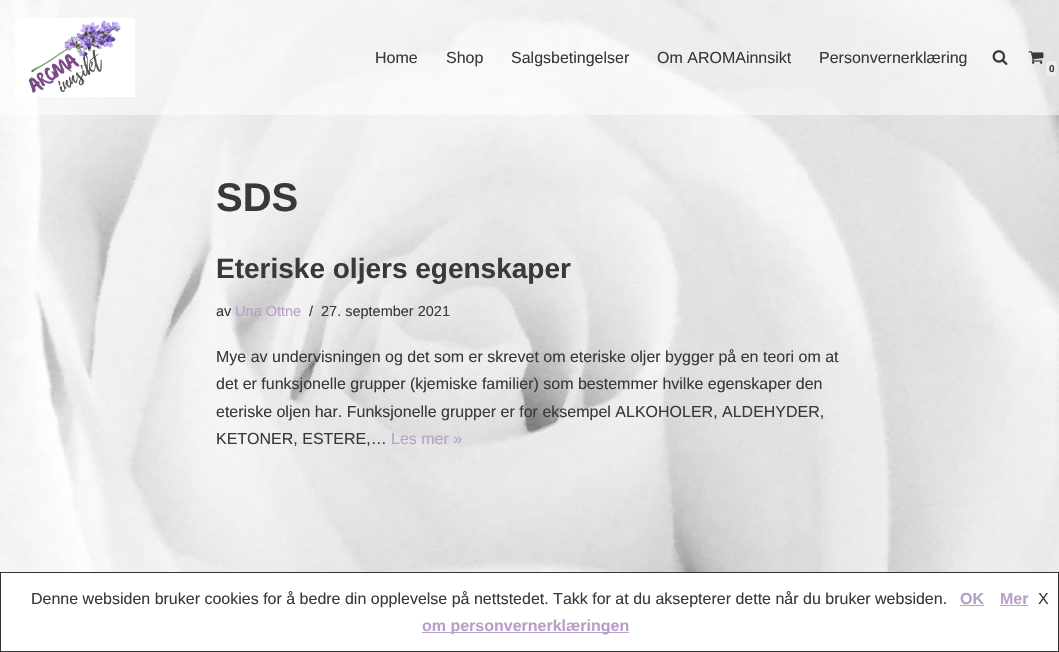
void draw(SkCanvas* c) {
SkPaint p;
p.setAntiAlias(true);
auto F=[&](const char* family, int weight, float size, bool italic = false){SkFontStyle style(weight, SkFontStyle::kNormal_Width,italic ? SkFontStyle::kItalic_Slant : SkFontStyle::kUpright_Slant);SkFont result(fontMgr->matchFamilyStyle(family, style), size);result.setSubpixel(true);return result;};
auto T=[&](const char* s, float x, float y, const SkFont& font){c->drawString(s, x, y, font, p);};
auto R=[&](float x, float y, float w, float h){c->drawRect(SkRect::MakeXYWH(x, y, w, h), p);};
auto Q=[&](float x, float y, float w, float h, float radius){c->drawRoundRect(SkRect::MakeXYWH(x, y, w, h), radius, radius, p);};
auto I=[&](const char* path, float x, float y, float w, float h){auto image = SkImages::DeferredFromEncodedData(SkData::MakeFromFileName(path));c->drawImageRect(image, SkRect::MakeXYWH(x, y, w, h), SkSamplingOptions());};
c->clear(0xffffffff);
I("1.png",0,0,1059,572);
p.setColor(0x80ffffff);
R(0,0,1059,115);
I("2.png",15,18,120,79);
auto f1 = F("Liberation Sans",400,16);
p.setColor(0xff393939);
T("Home",375,63,f1);
T("Shop",446,63,f1);
T("Salgsbetingelser",511,63,f1);
T("Om AROMAinnsikt",657,63,f1);
T("Personvernerklæring",819,63,f1);
I("3.png",992,50,16,15);
I("4.png",1028,51,16,13);
p.setColor(0xffededed);
Q(1046,61,11,15,3);
auto f2 = F("Liberation Sans",700,10);
p.setColor(0xff393939);
T("0",1049,72,f2);
auto f3 = F("Liberation Sans",700,40);
T("SDS",216,211,f3);
auto f4 = F("Liberation Sans",700,28);
T("Eteriske oljers egenskaper",216,278,f4);
auto f5 = F("Liberation Sans",400,14.5);
T("av",216,316,f5);
p.setColor(0xffb9a0ca);
T("Una Ottne",235,316,f5);
p.setColor(0xff393939);
T("/",309,316,f5);
T("27. september 2021",321,316,f5);
T("Mye av undervisningen og det som er skrevet om eteriske oljer bygger på en teori om at",216,362,f1);
T("det er funksjonelle grupper (kjemiske familier) som bestemmer hvilke egenskaper den",216,389,f1);
T("eteriske oljen har. Funksjonelle grupper er for eksempel ALKOHOLER, ALDEHYDER,",216,417,f1);
T("KETONER, ESTERE,…",216,444,f1);
p.setColor(0xffb9a0ca);
T("Les mer »",391,444,f1);
p.setStroke(true);
p.setStrokeWidth(1);
p.setColor(0xff333333);
c->drawRect(SkRect::MakeXYWH(.5,572.5,1058,79),p);
p.setStroke(false);
p.setColor(0xff393939);
T("Denne websiden bruker cookies for å bedre din opplevelse på nettstedet. Takk for at du aksepterer dette når du bruker websiden.",31,604,f1);
auto f6 = F("Liberation Sans",700,16);
p.setColor(0xffb9a0ca);
T("OK",960,604,f6);
p.setColor(0xffbaa1cb);
R(960,605,24,1);
p.setColor(0xffb9a0ca);
T("Mer",1000,604,f6);
p.setColor(0xffbaa1cb);
R(1000,605,28,1);
p.setColor(0xff393939);
T("X",1038,604,f1);
p.setColor(0xffbaa1cb);
R(422,632,207,1);
p.setColor(0xffb9a0ca);
T("om personvernerklæringen",422,631,f6);
}
